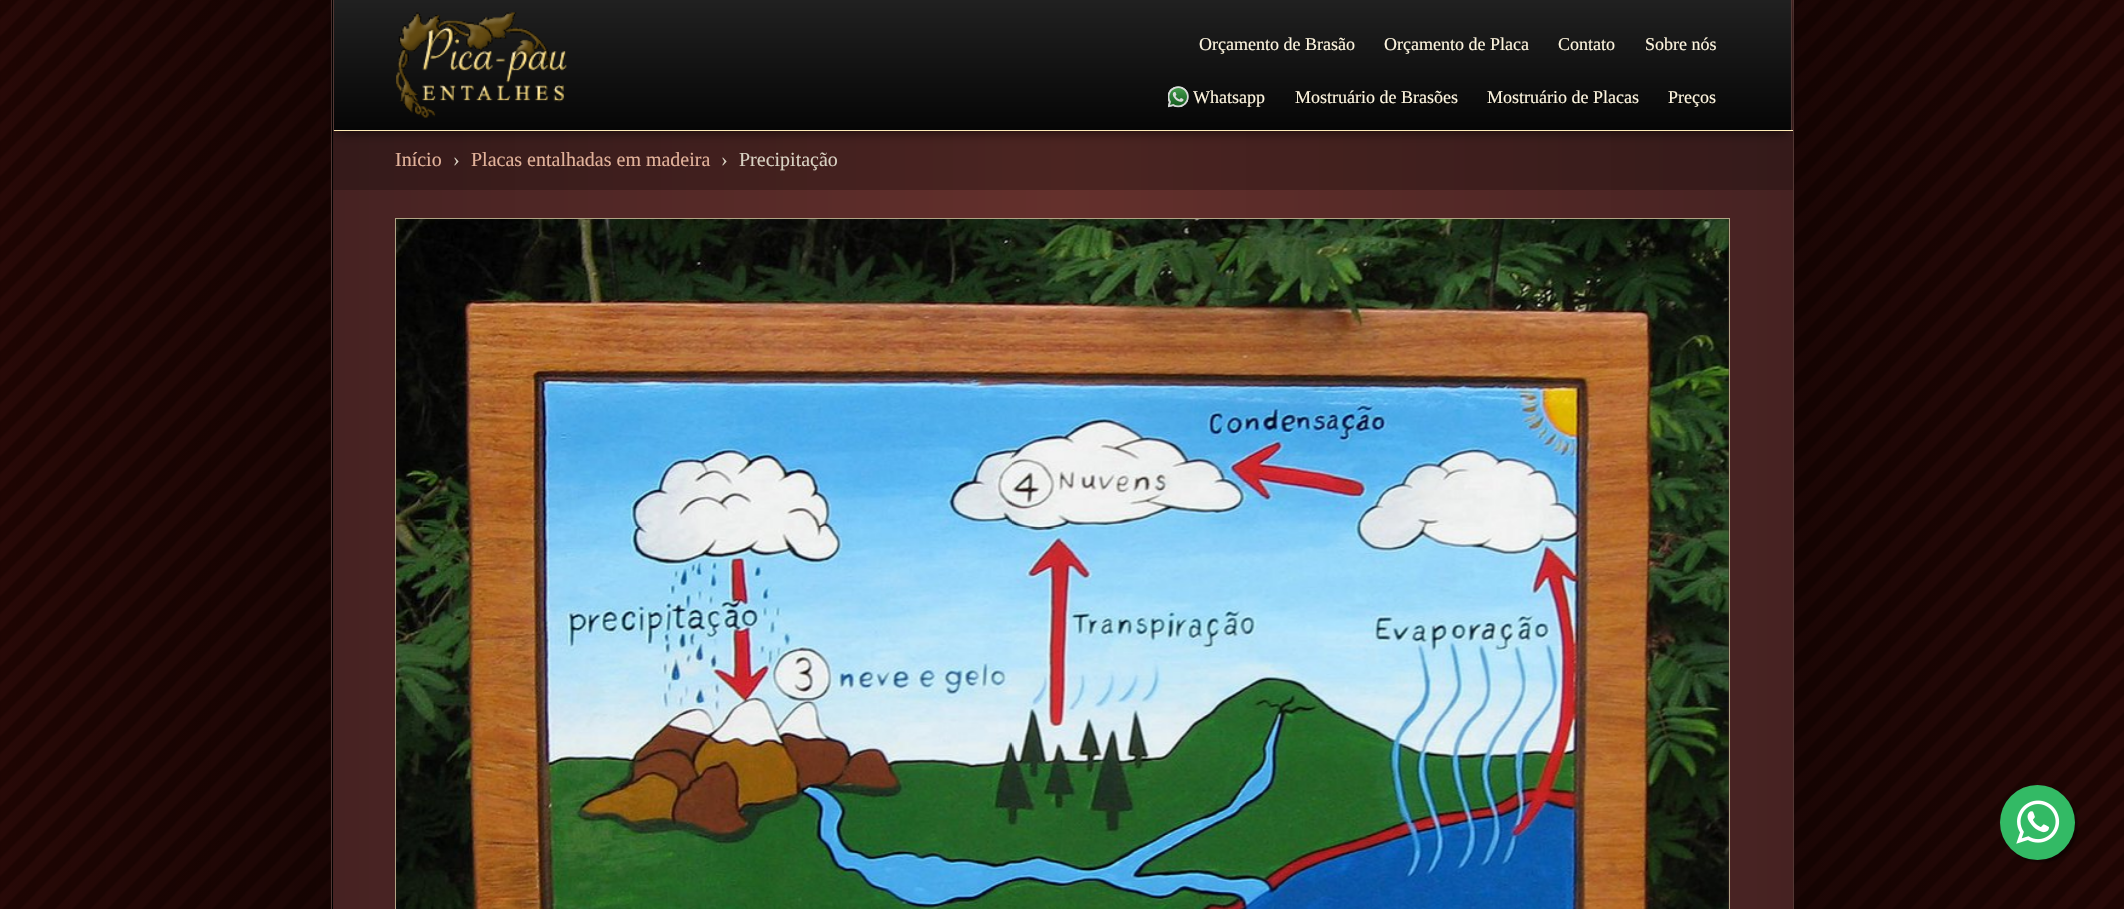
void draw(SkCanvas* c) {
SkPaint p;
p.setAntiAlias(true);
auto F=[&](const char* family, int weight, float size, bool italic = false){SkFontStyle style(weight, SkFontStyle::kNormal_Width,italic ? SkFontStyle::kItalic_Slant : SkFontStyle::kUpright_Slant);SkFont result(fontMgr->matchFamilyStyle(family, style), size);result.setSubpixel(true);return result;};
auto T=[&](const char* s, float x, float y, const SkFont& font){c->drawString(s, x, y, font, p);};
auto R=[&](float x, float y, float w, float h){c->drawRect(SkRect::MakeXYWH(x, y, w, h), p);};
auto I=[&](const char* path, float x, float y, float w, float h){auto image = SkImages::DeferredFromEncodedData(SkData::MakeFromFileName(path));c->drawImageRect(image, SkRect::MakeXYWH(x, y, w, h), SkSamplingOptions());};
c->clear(0xffffffff);
I("1.png",0,0,2124,909);
p.setColor(0xff000000);
R(332,0,1,909);
{
const SkColor colors[] = {0xff462222,0xff64302c,0xff462222};
const float stops[] = {0,.5,1};
const SkPoint ends[] = {{333,131}, {1793,131}};
p.setShader(SkGradientShader::MakeLinear(ends, colors, stops, 3, SkTileMode::kClamp));
p.setAlpha(255);
}
R(1792,0,1,130);
p.setShader(nullptr);
p.setColor(0xff533834);
R(1793,0,1,909);
R(331,0,1,909);
{
const SkColor colors[] = {0xff462222,0xff64302c,0xff462222};
const float stops[] = {0,.5,1};
const SkPoint ends[] = {{333,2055}, {1793,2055}};
p.setShader(SkGradientShader::MakeLinear(ends, colors, stops, 3, SkTileMode::kClamp));
p.setAlpha(255);
}
R(333,131,1460,778);
p.setShader(nullptr);
p.setColor(0x40000000);
R(333,131,1460,59);
p.setColor(0xbf000000);
p.setMaskFilter(SkMaskFilter::MakeBlur(kNormal_SkBlurStyle, 6));
c->drawRect(SkRect::MakeXYWH(336,8,1453,123),p);
p.setMaskFilter(nullptr);
{
const SkColor colors[] = {0xff202020,0xff060606};
const float stops[] = {0,1};
const SkPoint ends[] = {{1063,0}, {1063,130}};
p.setShader(SkGradientShader::MakeLinear(ends, colors, stops, 2, SkTileMode::kClamp));
p.setAlpha(255);
}
R(334,0,1457,130);
p.setShader(nullptr);
p.setColor(0xff533834);
R(1791,0,1,131);
p.setColor(0xffffebb6);
R(333,130,1460,1);
p.setColor(0xff533834);
R(333,0,1,131);
I("2.png",396,12,171,106);
auto f1 = F("Liberation Serif",400,18);
p.setColor(0xfffff6df);
T("Orçamento de Brasão",1199,50,f1);
T("Orçamento de Placa",1384,50,f1);
T("Contato",1558,50,f1);
T("Sobre nós",1645,50,f1);
I("3.png",1168,86,21,22);
T("Whatsapp",1193,103,f1);
T("Mostruário de Brasões",1295,103,f1);
T("Mostruário de Placas",1487,103,f1);
T("Preços",1668,103,f1);
auto f2 = F("Liberation Serif",400,20);
p.setColor(0xffe2b29a);
T("Início",395,166,f2);
p.setColor(0xffd9d2c3);
T("›",453,166,f2);
p.setColor(0xffe2b29a);
T("Placas entalhadas em madeira",471,166,f2);
p.setColor(0xffd9d2c3);
T("›",721,166,f2);
T("Precipitação",739,166,f2);
p.setStroke(true);
p.setStrokeWidth(1);
p.setColor(0xffb1a485);
c->drawRect(SkRect::MakeXYWH(395.5,218.5,1334,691),p);
I("4.png",396,219,1333,690);
p.setStroke(false);
p.setColor(0x66000000);
p.setMaskFilter(SkMaskFilter::MakeBlur(kNormal_SkBlurStyle, 1));
c->drawRoundRect(SkRect::MakeXYWH(2003,788,75,75),37.5,37.5,p);
p.setMaskFilter(nullptr);
p.setColor(0xff33ba65);
c->drawCircle(2037.5,822.5,37.5,p);
I("5.png",2016,800,44,44);
}
